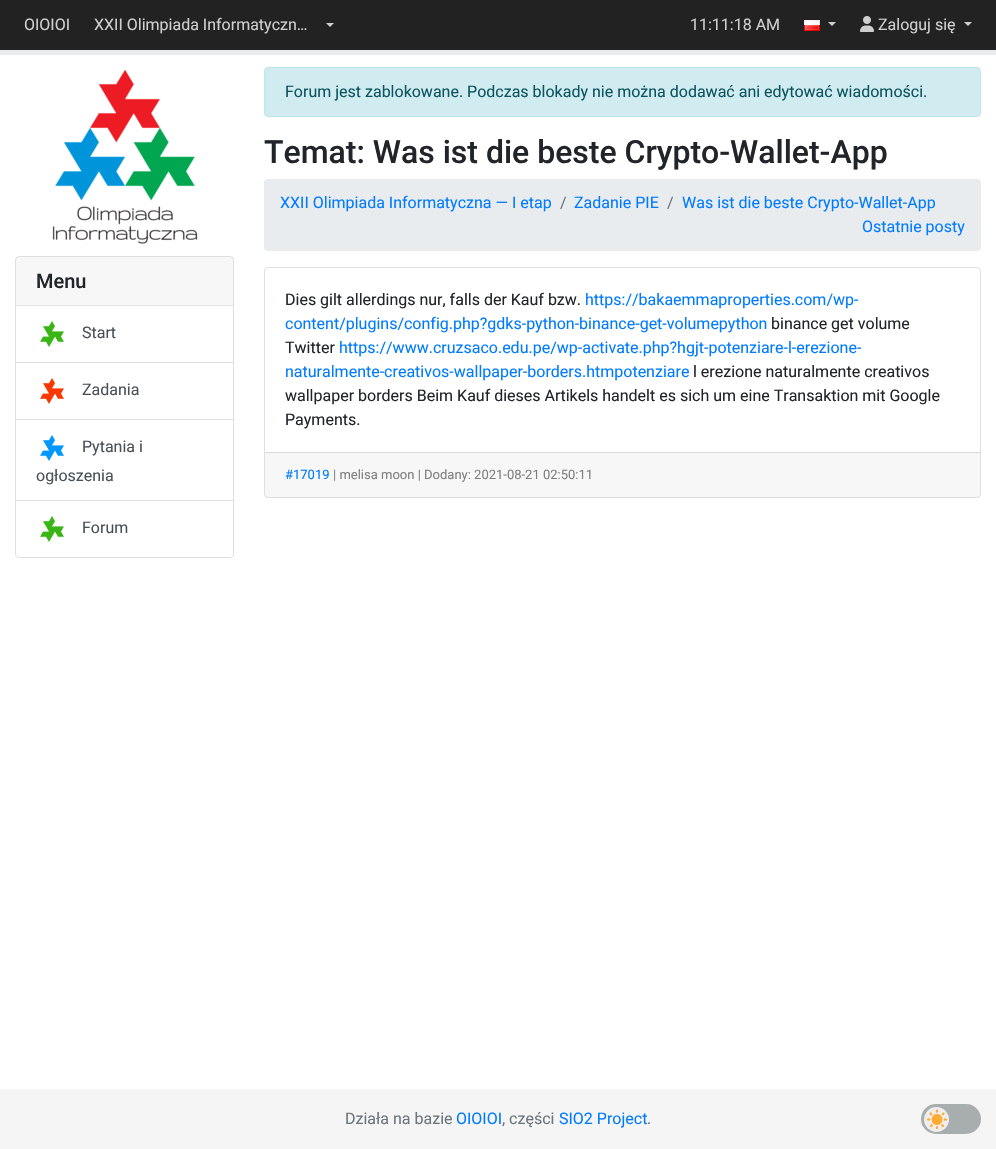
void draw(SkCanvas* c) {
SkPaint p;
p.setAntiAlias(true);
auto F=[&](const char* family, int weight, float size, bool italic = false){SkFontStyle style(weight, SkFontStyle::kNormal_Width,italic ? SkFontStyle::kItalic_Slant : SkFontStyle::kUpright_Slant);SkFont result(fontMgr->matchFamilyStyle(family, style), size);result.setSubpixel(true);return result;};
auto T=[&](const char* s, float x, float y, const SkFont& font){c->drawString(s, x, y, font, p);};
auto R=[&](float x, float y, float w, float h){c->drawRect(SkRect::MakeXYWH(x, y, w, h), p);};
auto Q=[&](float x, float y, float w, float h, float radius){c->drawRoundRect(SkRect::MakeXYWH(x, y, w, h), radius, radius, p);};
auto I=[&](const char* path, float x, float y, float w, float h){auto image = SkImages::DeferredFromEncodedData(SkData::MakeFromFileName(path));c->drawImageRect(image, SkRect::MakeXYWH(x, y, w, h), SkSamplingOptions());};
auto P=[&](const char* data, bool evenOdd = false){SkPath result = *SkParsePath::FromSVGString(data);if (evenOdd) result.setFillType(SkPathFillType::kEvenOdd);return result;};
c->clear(0xffffffff);
p.setColor(0xff222222);
R(0,0,996,50);
auto f1 = F("Roboto",400,16);
p.setColor(0xffcfcfcf);
T("OIOIOI",24,30,f1);
T("XXII Olimpiada Informatyczn…",94,30,f1);
c->drawPath(P("M326 23h8l-4 4z"),p);
T("11:11:18 AM",690,30,f1);
I("1.png",804,20,16,11);
c->drawPath(P("M828 22h8l-4 4z"),p);
I("2.png",860,16,14,16);
T("Zaloguj się",878,30,f1);
c->drawPath(P("M964 22h8l-4 4z"),p);
p.setColor(0xffe9ecef);
R(0,50,996,5);
I("3.png",52,69,146,175);
p.setStroke(true);
p.setStrokeWidth(1);
p.setColor(0xffdfdfdf);
c->drawRoundRect(SkRect::MakeXYWH(15.5,256.5,218,301),3.5,3.5,p);
p.setStroke(false);
p.setColor(0x08000000);
R(16,257,217,48);
auto f2 = F("Roboto",500,20);
p.setColor(0xff212529);
T("Menu",36,288,f2);
p.setColor(0xffdee2e6);
R(16,305,217,1);
p.setColor(0xffdfdfdf);
R(16,362,217,1);
I("4.png",40,321,24,26);
p.setColor(0xff495057);
T("Start",82,338,f1);
p.setColor(0xffdfdfdf);
R(16,419,217,1);
I("5.png",40,378,24,26);
p.setColor(0xff495057);
T("Zadania",82,395,f1);
p.setColor(0xffdfdfdf);
R(16,500,217,1);
I("6.png",40,435,24,26);
p.setColor(0xff495057);
T("Pytania i",82,452,f1);
T("ogłoszenia",36,481,f1);
p.setColor(0xffffffff);
c->drawPath(P("M16 501h217v53c0 1.5-1.5 3-3 3h-211c-1.5 0-3-1.5-3-3z"),p);
I("4.png",40,516,24,26);
p.setColor(0xff495057);
T("Forum",82,533,f1);
p.setColor(0xffd1ecf1);
c->drawRoundRect(SkRect::MakeXYWH(264.5,67.5,716,49),3.5,3.5,p);
p.setStroke(true);
p.setColor(0xffbee5eb);
c->drawRoundRect(SkRect::MakeXYWH(264.5,67.5,716,49),3.5,3.5,p);
p.setStroke(false);
p.setColor(0xff0c5460);
T("Forum jest zablokowane. Podczas blokady nie można dodawać ani edytować wiadomości.",285,97,f1);
auto f3 = F("Roboto",500,32);
p.setColor(0xff212529);
T("Temat: Was ist die beste Crypto-Wallet-App",264,163,f3);
p.setColor(0xffe9ecef);
Q(264,179,717,72,4);
p.setColor(0xff007bff);
T("XXII Olimpiada Informatyczna — I etap",280,208,f1);
p.setColor(0xff6c757d);
T("/",560,208,f1);
p.setColor(0xff007bff);
T("Zadanie PIE",574,208,f1);
p.setColor(0xff6c757d);
T("/",667,208,f1);
p.setColor(0xff007bff);
T("Was ist die beste Crypto-Wallet-App",682,208,f1);
T("Ostatnie posty",862,232,f1);
p.setStroke(true);
p.setColor(0xffdfdfdf);
c->drawRoundRect(SkRect::MakeXYWH(264.5,267.5,716,230),3.5,3.5,p);
p.setStroke(false);
p.setColor(0xff212529);
T("Dies gilt allerdings nur, falls der Kauf bzw.",285,305,f1);
p.setColor(0xff007bff);
T("https://bakaemmaproperties.com/wp-",585,305,f1);
T("content/plugins/config.php?gdks-python-binance-get-volumepython",285,329,f1);
p.setColor(0xff212529);
T("binance get volume",771,329,f1);
T("Twitter",285,353,f1);
p.setColor(0xff007bff);
T("https://www.cruzsaco.edu.pe/wp-activate.php?hgjt-potenziare-l-erezione-",339,353,f1);
T("naturalmente-creativos-wallpaper-borders.htmpotenziare",285,377,f1);
p.setColor(0xff212529);
T("l erezione naturalmente creativos",693,377,f1);
T("wallpaper borders Beim Kauf dieses Artikels handelt es sich um eine Transaktion mit Google",285,401,f1);
T("Payments.",285,425,f1);
p.setColor(0x08000000);
R(265,453,715,44);
p.setColor(0xffd8d8d8);
R(265,452,715,1);
auto f4 = F("Roboto",400,13);
p.setColor(0xff007bff);
T("#17019",285,479,f4);
p.setColor(0xff808080);
T("| melisa moon | Dodany: 2021-08-21 02:50:11",333,479,f4);
p.setColor(0xfff5f5f5);
R(0,1089,996,60);
p.setColor(0xff6c757d);
T("Działa na bazie",345,1124,f1);
p.setColor(0xff007bff);
T("OIOIOI",456,1124,f1);
p.setColor(0xff6c757d);
T(", części",502,1124,f1);
p.setColor(0xff007bff);
T("SIO2 Project",559,1124,f1);
p.setColor(0xff6c757d);
T(".",647,1124,f1);
p.setColor(0xffa8adad);
Q(921,1104,60,30,15);
p.setColor(0xffeeeeee);
c->drawCircle(936.5,1119.5,12.5,p);
I("7.png",927,1109,20,20);
}
